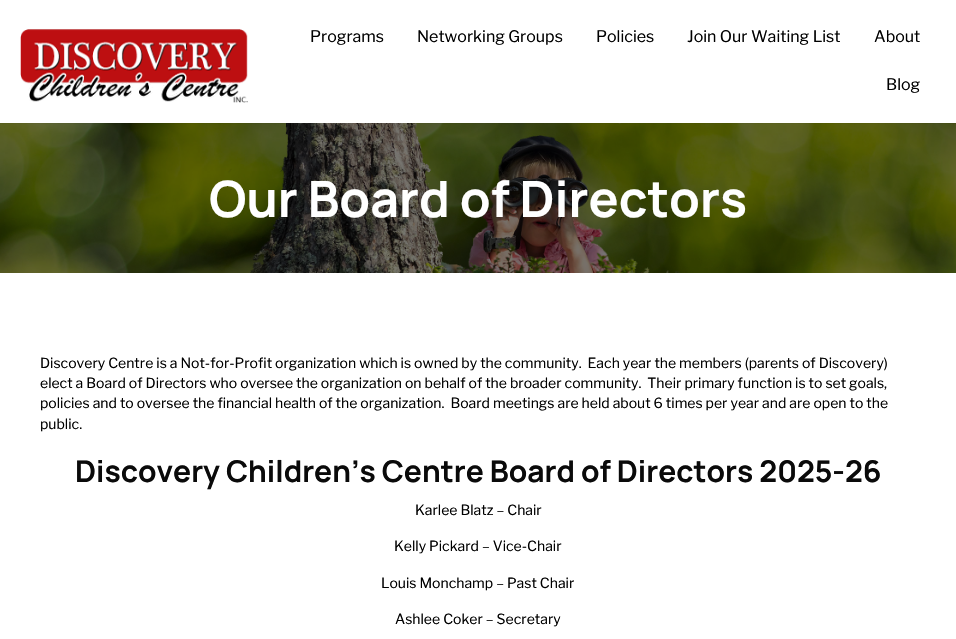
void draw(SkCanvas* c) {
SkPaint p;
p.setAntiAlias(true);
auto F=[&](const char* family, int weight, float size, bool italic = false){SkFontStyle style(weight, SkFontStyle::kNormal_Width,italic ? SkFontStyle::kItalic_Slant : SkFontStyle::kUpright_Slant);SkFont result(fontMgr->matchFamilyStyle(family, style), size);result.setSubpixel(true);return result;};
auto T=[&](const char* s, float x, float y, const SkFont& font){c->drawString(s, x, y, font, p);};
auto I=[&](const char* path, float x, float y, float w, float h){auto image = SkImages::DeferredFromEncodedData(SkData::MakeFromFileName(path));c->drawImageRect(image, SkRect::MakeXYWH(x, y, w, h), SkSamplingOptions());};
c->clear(0xffffffff);
I("1.png",20,29,228,74);
auto f1 = F("Libre Franklin",400,16);
p.setColor(0xff000000);
T("Programs",310,42,f1);
T("Networking Groups",417,42,f1);
T("Policies",596,42,f1);
T("Join Our Waiting List",687,42,f1);
T("About",874,42,f1);
T("Blog",886,90,f1);
I("2.png",0,123,956,150);
auto f2 = F("Manrope",200,50);
p.setColor(0xffffffff);
T("Our Board of Directors",209,217,f2);
auto f3 = F("Libre Franklin",400,14);
p.setColor(0xff000000);
T("Discovery Centre is a Not-for-Profit organization which is owned by the community.  Each year the members (parents of Discovery)",40,368,f3);
T("elect a Board of Directors who oversee the organization on behalf of the broader community.  Their primary function is to set goals,",40,388,f3);
T("policies and to oversee the financial health of the organization.  Board meetings are held about 6 times per year and are open to the",40,408,f3);
T("public.",40,429,f3);
auto f4 = F("Manrope",200,30);
p.setColor(0xff0a0a0a);
T("Discovery Children’s Centre Board of Directors 2025-26",75,482,f4);
p.setColor(0xff000000);
T("Karlee Blatz – Chair",415,515,f3);
T("Kelly Pickard – Vice-Chair",394,551,f3);
T("Louis Monchamp – Past Chair",381,588,f3);
T("Ashlee Coker – Secretary",395,624,f3);
}
